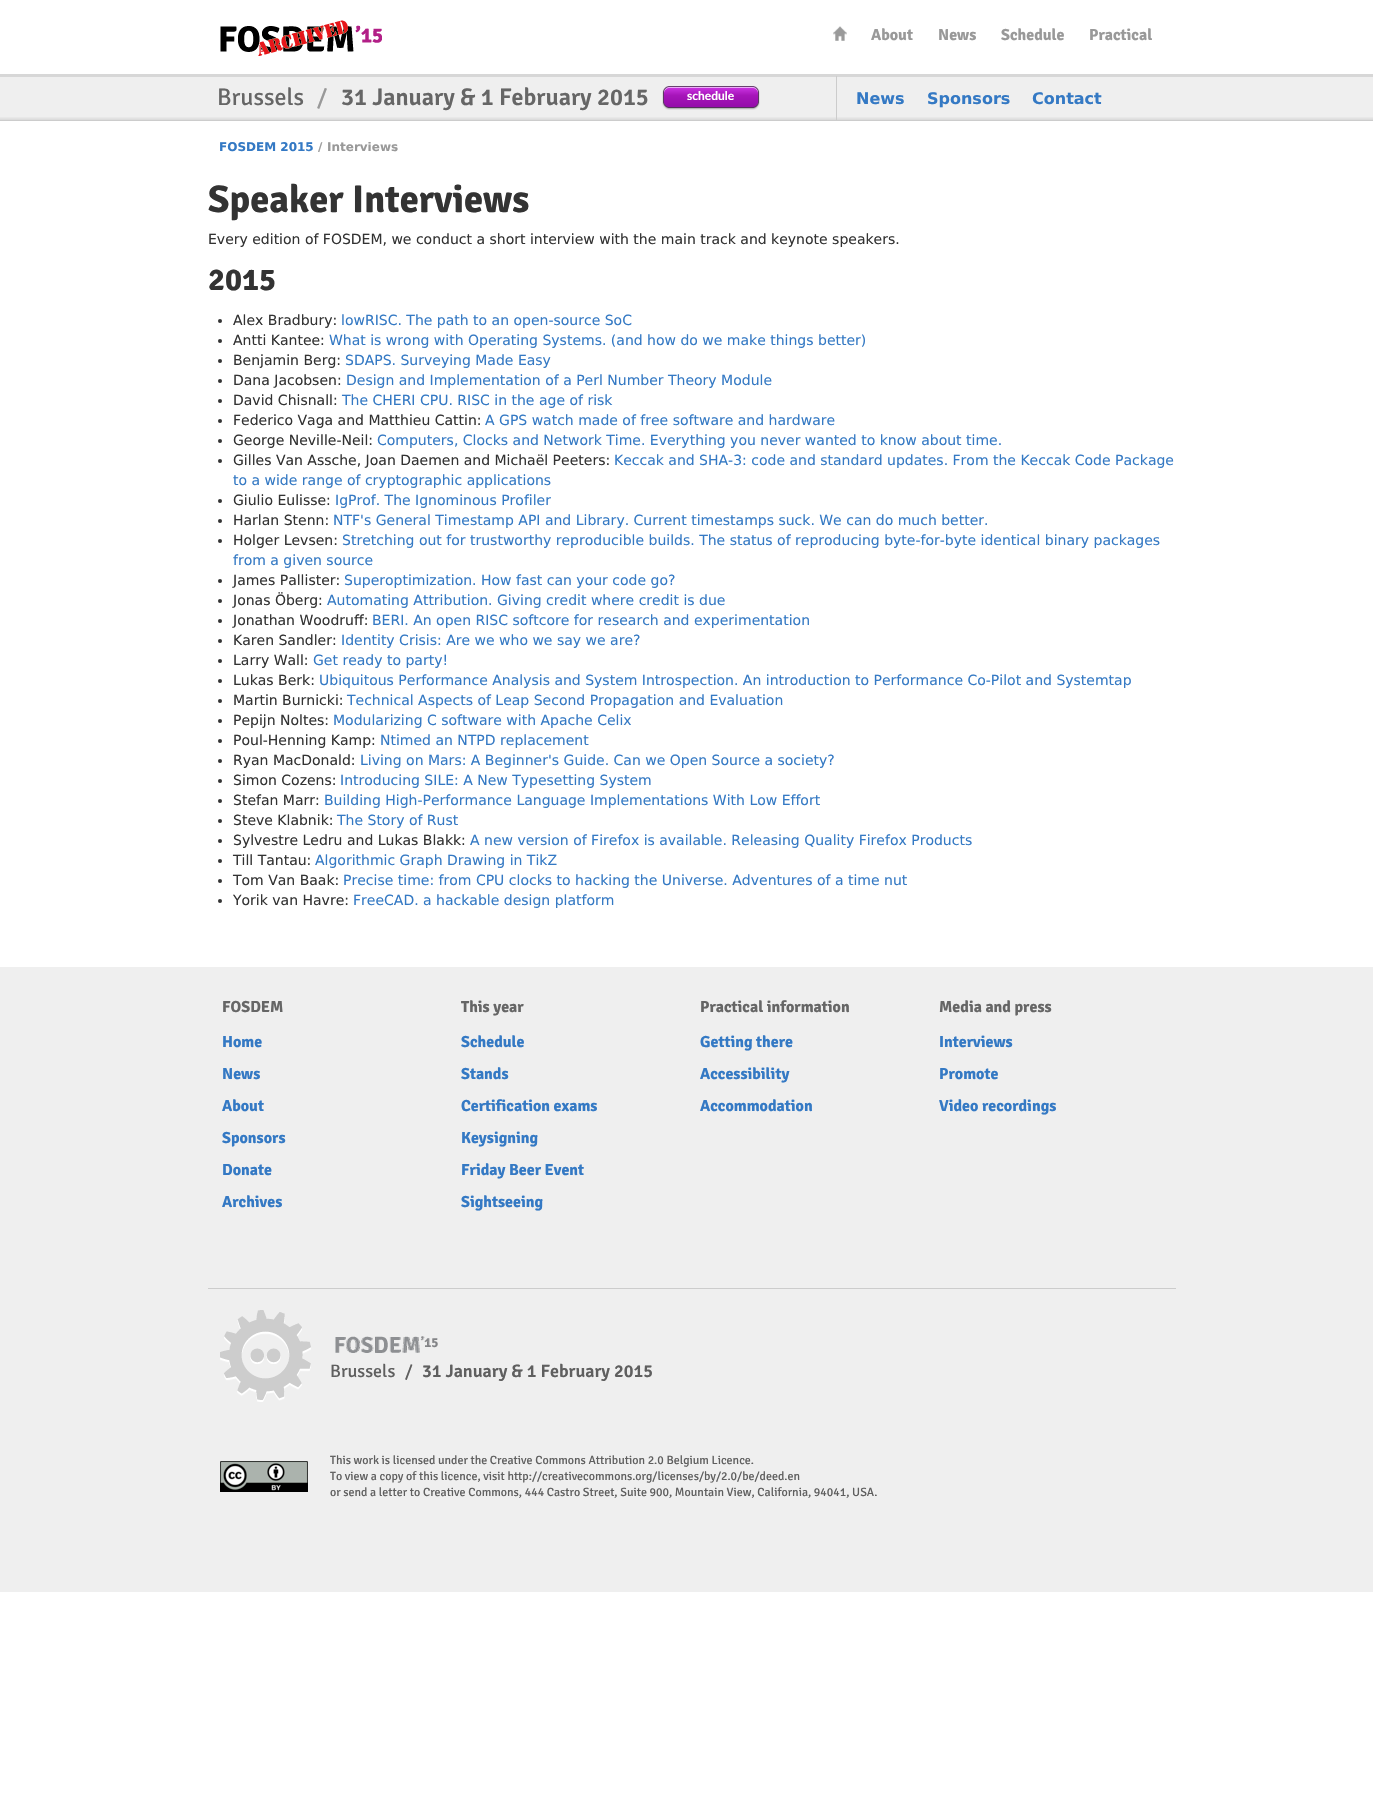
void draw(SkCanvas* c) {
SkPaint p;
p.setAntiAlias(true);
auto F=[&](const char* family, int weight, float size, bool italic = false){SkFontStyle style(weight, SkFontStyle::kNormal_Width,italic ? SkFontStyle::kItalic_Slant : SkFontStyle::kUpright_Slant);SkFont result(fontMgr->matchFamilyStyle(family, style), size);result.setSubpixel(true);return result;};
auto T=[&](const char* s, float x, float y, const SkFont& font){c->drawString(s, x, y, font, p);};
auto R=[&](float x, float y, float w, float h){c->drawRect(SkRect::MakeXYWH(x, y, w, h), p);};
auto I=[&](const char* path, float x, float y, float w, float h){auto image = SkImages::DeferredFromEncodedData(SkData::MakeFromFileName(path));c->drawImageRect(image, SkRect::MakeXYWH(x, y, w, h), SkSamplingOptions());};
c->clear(0xffffffff);
I("1.png",220,20,162,36);
I("2.png",833,26,14,15);
auto f1 = F("Signika",700,16);
p.setColor(0xff999999);
T("About",871,40,f1);
T("News",938,40,f1);
T("Schedule",1001,40,f1);
T("Practical",1089,40,f1);
p.setColor(0xffefefef);
R(0,77,1373,40);
p.setColor(0xffd7d7d7);
R(0,74,1373,3);
I("3.png",0,117,1373,4);
auto f2 = F("Signika",400,24);
p.setColor(0xff666666);
T("Brussels",217,105,f2);
p.setColor(0xff999999);
T("/",317,105,f2);
auto f3 = F("Signika",600,24);
p.setColor(0xff666666);
T("31 January & 1 February 2015",341,105,f3);
I("4.png",662,86,98,24);
auto f4 = F("Lato",700,12);
p.setColor(0xffffffff);
T("schedule",687,100,f4);
p.setColor(0xffcccccc);
R(836,76,1,45);
auto f5 = F("DejaVu Sans",700,16);
p.setColor(0xff3479c4);
T("News",856,104,f5);
T("Sponsors",927,104,f5);
T("Contact",1032,104,f5);
auto f6 = F("DejaVu Sans",700,12);
T("FOSDEM 2015",219,151,f6);
p.setColor(0xff9f9f9f);
T("/",318,151,f6);
p.setColor(0xff999999);
T("Interviews",327,151,f6);
auto f7 = F("Signika",700,38.5);
p.setColor(0xff333333);
T("Speaker Interviews",208,212,f7);
auto f8 = F("DejaVu Sans",400,14);
T("Every edition of FOSDEM, we conduct a short interview with the main track and keynote speakers.",208,244,f8);
auto f9 = F("Signika",700,31.5);
T("2015",208,290,f9);
c->drawCircle(220,321,2,p);
T("Alex Bradbury:",233,325,f8);
p.setColor(0xff3479c4);
T("lowRISC. The path to an open-source SoC",341,325,f8);
p.setColor(0xff333333);
c->drawCircle(220,341,2,p);
T("Antti Kantee:",233,345,f8);
p.setColor(0xff3479c4);
T("What is wrong with Operating Systems. (and how do we make things better)",329,345,f8);
p.setColor(0xff333333);
c->drawCircle(220,361,2,p);
T("Benjamin Berg:",233,365,f8);
p.setColor(0xff3479c4);
T("SDAPS. Surveying Made Easy",345,365,f8);
p.setColor(0xff333333);
c->drawCircle(220,381,2,p);
T("Dana Jacobsen:",233,385,f8);
p.setColor(0xff3479c4);
T("Design and Implementation of a Perl Number Theory Module",346,385,f8);
p.setColor(0xff333333);
c->drawCircle(220,401,2,p);
T("David Chisnall:",233,405,f8);
p.setColor(0xff3479c4);
T("The CHERI CPU. RISC in the age of risk",342,405,f8);
p.setColor(0xff333333);
c->drawCircle(220,421,2,p);
T("Federico Vaga and Matthieu Cattin:",233,425,f8);
p.setColor(0xff3479c4);
T("A GPS watch made of free software and hardware",485,425,f8);
p.setColor(0xff333333);
c->drawCircle(220,441,2,p);
T("George Neville-Neil:",233,445,f8);
p.setColor(0xff3479c4);
T("Computers, Clocks and Network Time. Everything you never wanted to know about time.",377,445,f8);
p.setColor(0xff333333);
c->drawCircle(220,461,2,p);
T("Gilles Van Assche, Joan Daemen and Michaël Peeters:",233,465,f8);
p.setColor(0xff3479c4);
T("Keccak and SHA-3: code and standard updates. From the Keccak Code Package",614,465,f8);
T("to a wide range of cryptographic applications",233,485,f8);
p.setColor(0xff333333);
c->drawCircle(220,501,2,p);
T("Giulio Eulisse:",233,505,f8);
p.setColor(0xff3479c4);
T("IgProf. The Ignominous Profiler",335,505,f8);
p.setColor(0xff333333);
c->drawCircle(220,521,2,p);
T("Harlan Stenn:",233,525,f8);
p.setColor(0xff3479c4);
T("NTF's General Timestamp API and Library. Current timestamps suck. We can do much better.",333,525,f8);
p.setColor(0xff333333);
c->drawCircle(220,541,2,p);
T("Holger Levsen:",233,545,f8);
p.setColor(0xff3479c4);
T("Stretching out for trustworthy reproducible builds. The status of reproducing byte-for-byte identical binary packages",342,545,f8);
T("from a given source",233,565,f8);
p.setColor(0xff333333);
c->drawCircle(220,581,2,p);
T("James Pallister:",233,585,f8);
p.setColor(0xff3479c4);
T("Superoptimization. How fast can your code go?",344,585,f8);
p.setColor(0xff333333);
c->drawCircle(220,601,2,p);
T("Jonas Öberg:",233,605,f8);
p.setColor(0xff3479c4);
T("Automating Attribution. Giving credit where credit is due",327,605,f8);
p.setColor(0xff333333);
c->drawCircle(220,621,2,p);
T("Jonathan Woodruff:",233,625,f8);
p.setColor(0xff3479c4);
T("BERI. An open RISC softcore for research and experimentation",372,625,f8);
p.setColor(0xff333333);
c->drawCircle(220,641,2,p);
T("Karen Sandler:",233,645,f8);
p.setColor(0xff3479c4);
T("Identity Crisis: Are we who we say we are?",341,645,f8);
p.setColor(0xff333333);
c->drawCircle(220,661,2,p);
T("Larry Wall:",233,665,f8);
p.setColor(0xff3479c4);
T("Get ready to party!",313,665,f8);
p.setColor(0xff333333);
c->drawCircle(220,681,2,p);
T("Lukas Berk:",233,685,f8);
p.setColor(0xff3479c4);
T("Ubiquitous Performance Analysis and System Introspection. An introduction to Performance Co-Pilot and Systemtap",319,685,f8);
p.setColor(0xff333333);
c->drawCircle(220,701,2,p);
T("Martin Burnicki:",233,705,f8);
p.setColor(0xff3479c4);
T("Technical Aspects of Leap Second Propagation and Evaluation",347,705,f8);
p.setColor(0xff333333);
c->drawCircle(220,721,2,p);
T("Pepijn Noltes:",233,725,f8);
p.setColor(0xff3479c4);
T("Modularizing C software with Apache Celix",333,725,f8);
p.setColor(0xff333333);
c->drawCircle(220,741,2,p);
T("Poul-Henning Kamp:",233,745,f8);
p.setColor(0xff3479c4);
T("Ntimed an NTPD replacement",380,745,f8);
p.setColor(0xff333333);
c->drawCircle(220,761,2,p);
T("Ryan MacDonald:",233,765,f8);
p.setColor(0xff3479c4);
T("Living on Mars: A Beginner's Guide. Can we Open Source a society?",360,765,f8);
p.setColor(0xff333333);
c->drawCircle(220,781,2,p);
T("Simon Cozens:",233,785,f8);
p.setColor(0xff3479c4);
T("Introducing SILE: A New Typesetting System",340,785,f8);
p.setColor(0xff333333);
c->drawCircle(220,801,2,p);
T("Stefan Marr:",233,805,f8);
p.setColor(0xff3479c4);
T("Building High-Performance Language Implementations With Low Effort",324,805,f8);
p.setColor(0xff333333);
c->drawCircle(220,821,2,p);
T("Steve Klabnik:",233,825,f8);
p.setColor(0xff3479c4);
T("The Story of Rust",337,825,f8);
p.setColor(0xff333333);
c->drawCircle(220,841,2,p);
T("Sylvestre Ledru and Lukas Blakk:",233,845,f8);
p.setColor(0xff3479c4);
T("A new version of Firefox is available. Releasing Quality Firefox Products",470,845,f8);
p.setColor(0xff333333);
c->drawCircle(220,861,2,p);
T("Till Tantau:",233,865,f8);
p.setColor(0xff3479c4);
T("Algorithmic Graph Drawing in TikZ",315,865,f8);
p.setColor(0xff333333);
c->drawCircle(220,881,2,p);
T("Tom Van Baak:",233,885,f8);
p.setColor(0xff3479c4);
T("Precise time: from CPU clocks to hacking the Universe. Adventures of a time nut",343,885,f8);
p.setColor(0xff333333);
c->drawCircle(220,901,2,p);
T("Yorik van Havre:",233,905,f8);
p.setColor(0xff3479c4);
T("FreeCAD. a hackable design platform",353,905,f8);
p.setColor(0xffefefef);
R(0,967,1373,625);
p.setColor(0xffcccccc);
R(208,1288,968,1);
p.setColor(0xff666666);
T("FOSDEM",222,1012,f1);
p.setColor(0xff3479c4);
T("Home",222,1047,f1);
T("News",222,1079,f1);
T("About",222,1111,f1);
T("Sponsors",222,1143,f1);
T("Donate",222,1175,f1);
T("Archives",222,1207,f1);
p.setColor(0xff666666);
T("This year",461,1012,f1);
p.setColor(0xff3479c4);
T("Schedule",461,1047,f1);
T("Stands",461,1079,f1);
T("Certification exams",461,1111,f1);
T("Keysigning",461,1143,f1);
T("Friday Beer Event",461,1175,f1);
T("Sightseeing",461,1207,f1);
p.setColor(0xff666666);
T("Practical information",700,1012,f1);
p.setColor(0xff3479c4);
T("Getting there",700,1047,f1);
T("Accessibility",700,1079,f1);
T("Accommodation",700,1111,f1);
p.setColor(0xff666666);
T("Media and press",939,1012,f1);
p.setColor(0xff3479c4);
T("Interviews",939,1047,f1);
T("Promote",939,1079,f1);
T("Video recordings",939,1111,f1);
I("5.png",220,1310,91,92);
I("6.png",335,1336,103,17);
auto f10 = F("Signika",400,18);
p.setColor(0xff5f5f5f);
T("Brussels",330,1377,f10);
T("/",405,1377,f10);
auto f11 = F("Signika",600,18);
T("31 January & 1 February 2015",422,1377,f11);
I("7.png",220,1461,88,31);
auto f12 = F("Signika",400,12);
T("This work is licensed under the Creative Commons Attribution 2.0 Belgium Licence.",330,1464,f12);
T("To view a copy of this licence, visit http://creativecommons.org/licenses/by/2.0/be/deed.en",330,1480,f12);
T("or send a letter to Creative Commons, 444 Castro Street, Suite 900, Mountain View, California, 94041, USA.",330,1496,f12);
}
